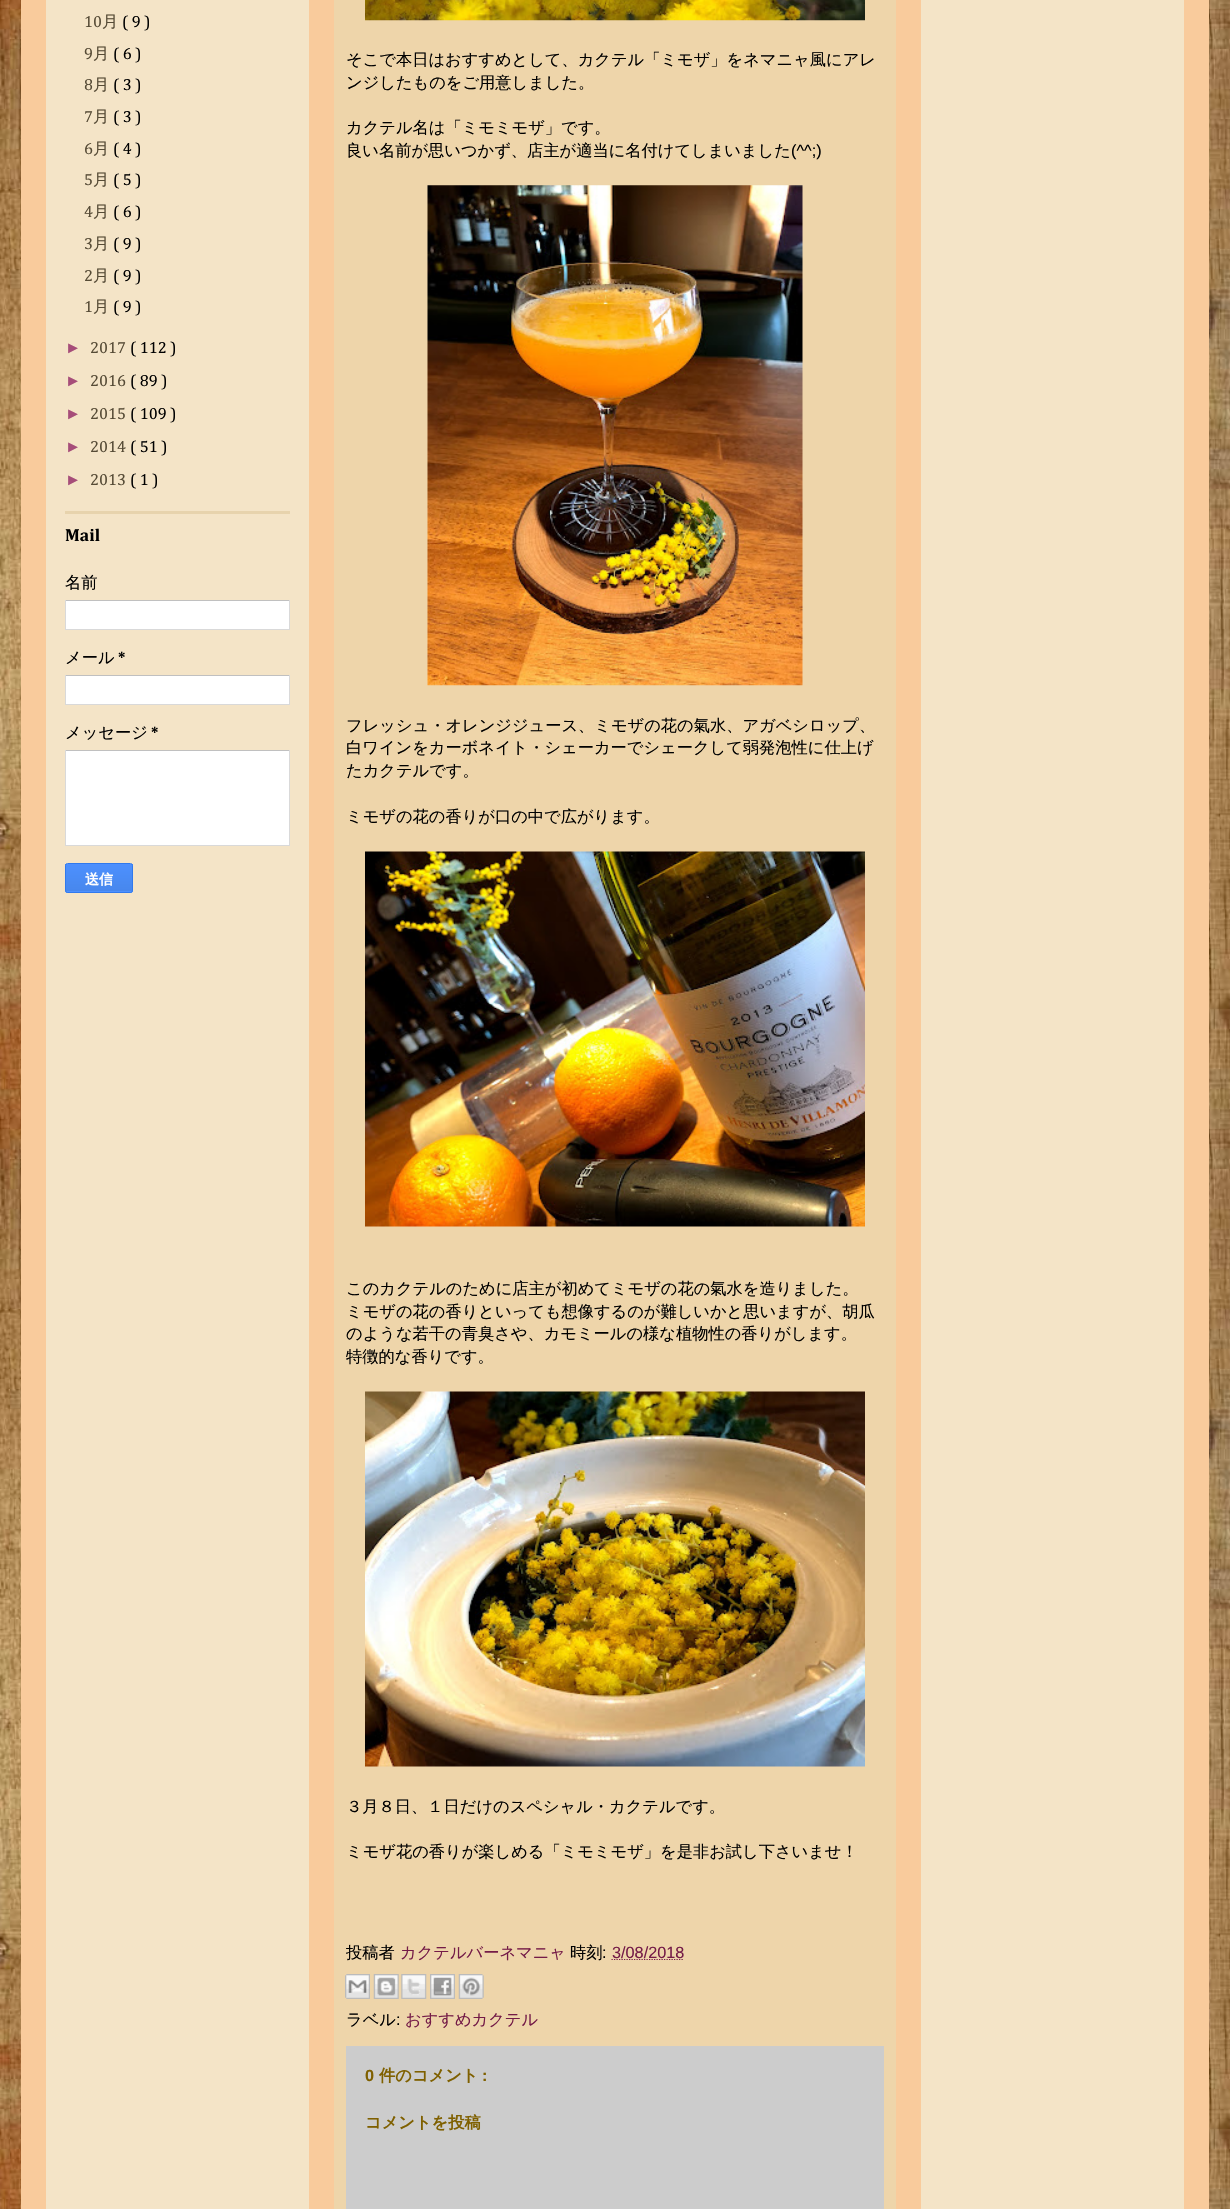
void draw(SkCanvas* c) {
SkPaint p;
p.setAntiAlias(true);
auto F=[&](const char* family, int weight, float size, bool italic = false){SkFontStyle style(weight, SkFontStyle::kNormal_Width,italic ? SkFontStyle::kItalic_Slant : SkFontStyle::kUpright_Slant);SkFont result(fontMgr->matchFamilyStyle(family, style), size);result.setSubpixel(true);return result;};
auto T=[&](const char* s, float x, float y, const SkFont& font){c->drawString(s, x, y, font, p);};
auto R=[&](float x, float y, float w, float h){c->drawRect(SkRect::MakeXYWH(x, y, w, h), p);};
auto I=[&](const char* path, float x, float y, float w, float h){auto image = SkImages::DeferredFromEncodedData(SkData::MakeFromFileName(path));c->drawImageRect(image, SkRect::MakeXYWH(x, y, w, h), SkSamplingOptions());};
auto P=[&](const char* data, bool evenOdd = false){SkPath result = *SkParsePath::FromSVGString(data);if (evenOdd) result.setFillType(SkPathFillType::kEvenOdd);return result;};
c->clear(0xffffffff);
I("1.png",0,0,1230,2209);
p.setColor(0xfff9cb9c);
R(21,0,1188,2209);
p.setColor(0xfff4e4c7);
R(46,0,263,2209);
R(921,0,263,2209);
p.setColor(0xffe7d3ad);
R(65,511,225,3);
auto f1 = F("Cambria",400,16.25);
p.setColor(0xff564b36);
T("10",84,27,f1);
auto f2 = F("WenQuanYi Zen Hei",500,16.25);
T("月",102,27,f2);
p.setColor(0xff000000);
T("( 9 )",122,27,f1);
p.setColor(0xff564b36);
T("9",84,59,f1);
T("月",93,59,f2);
p.setColor(0xff000000);
T("( 6 )",113,59,f1);
p.setColor(0xff564b36);
T("8",84,90,f1);
T("月",93,90,f2);
p.setColor(0xff000000);
T("( 3 )",113,90,f1);
p.setColor(0xff564b36);
T("7",84,122,f1);
T("月",93,122,f2);
p.setColor(0xff000000);
T("( 3 )",113,122,f1);
p.setColor(0xff564b36);
T("6",84,154,f1);
T("月",93,154,f2);
p.setColor(0xff000000);
T("( 4 )",113,154,f1);
p.setColor(0xff564b36);
T("5",84,185,f1);
T("月",93,185,f2);
p.setColor(0xff000000);
T("( 5 )",113,185,f1);
p.setColor(0xff564b36);
T("4",84,217,f1);
T("月",93,217,f2);
p.setColor(0xff000000);
T("( 6 )",113,217,f1);
p.setColor(0xff564b36);
T("3",84,249,f1);
T("月",93,249,f2);
p.setColor(0xff000000);
T("( 9 )",113,249,f1);
p.setColor(0xff564b36);
T("2",84,281,f1);
T("月",93,281,f2);
p.setColor(0xff000000);
T("( 9 )",113,281,f1);
p.setColor(0xff564b36);
T("1",84,312,f1);
T("月",93,312,f2);
p.setColor(0xff000000);
T("( 9 )",113,312,f1);
auto f3 = F("Liberation Sans",400,16.25);
p.setColor(0xffa64d79);
T("►",65,353,f3);
p.setColor(0xff564b36);
T("2017",90,353,f1);
p.setColor(0xff000000);
T("( 112 )",130,353,f1);
p.setColor(0xffa64d79);
T("►",65,386,f3);
p.setColor(0xff564b36);
T("2016",90,386,f1);
p.setColor(0xff000000);
T("( 89 )",130,386,f1);
p.setColor(0xffa64d79);
T("►",65,419,f3);
p.setColor(0xff564b36);
T("2015",90,419,f1);
p.setColor(0xff000000);
T("( 109 )",130,419,f1);
p.setColor(0xffa64d79);
T("►",65,452,f3);
p.setColor(0xff564b36);
T("2014",90,452,f1);
p.setColor(0xff000000);
T("( 51 )",130,452,f1);
p.setColor(0xffa64d79);
T("►",65,485,f3);
p.setColor(0xff564b36);
T("2013",90,485,f1);
p.setColor(0xff000000);
T("( 1 )",130,485,f1);
auto f4 = F("Cambria",700,17.5);
T("Mail",65,541,f4);
T("名前",65,588,f2);
p.setColor(0xffffffff);
R(66,601,223,28);
p.setColor(0xffc0c0c0);
R(65,600,225,1);
p.setColor(0xffd9d9d9);
R(289,600,1,30);
R(65,629,225,1);
R(65,600,1,30);
p.setColor(0xff000000);
T("メール",65,663,f2);
auto f5 = F("Cambria",700,16.25);
T("*",118,663,f5);
p.setColor(0xffffffff);
R(66,676,223,28);
p.setColor(0xffc0c0c0);
R(65,675,225,1);
p.setColor(0xffd9d9d9);
R(289,675,1,30);
R(65,704,225,1);
R(65,675,1,30);
p.setColor(0xff000000);
T("メッセージ",65,738,f2);
T("*",151,738,f5);
p.setColor(0xffffffff);
R(66,751,223,94);
p.setColor(0xffc0c0c0);
R(65,750,225,1);
p.setColor(0xffd9d9d9);
R(289,750,1,96);
R(65,845,225,1);
R(65,750,1,96);
{
const SkColor colors[] = {0xff4d90fe,0xff4787ed};
const float stops[] = {0,1};
const SkPoint ends[] = {{99,864}, {99,891}};
p.setShader(SkGradientShader::MakeLinear(ends, colors, stops, 2, SkTileMode::kClamp));
p.setAlpha(255);
}
R(65,864,68,27);
c->save();
c->clipPath(P("M67.5 863h63c1.5 0 2.5 1 2.5 2.5v25c0 1.5-1 2.5-2.5 2.5h-63c-1.5 0-2.5-1-2.5-2.5v-25c0-1.5 1-2.5 2.5-2.5z"),true);
{
const SkColor colors[] = {0xff4d90fe,0xff4787ed};
const float stops[] = {0,1};
const SkPoint ends[] = {{99,891}, {99,919}};
p.setShader(SkGradientShader::MakeLinear(ends, colors, stops, 2, SkTileMode::kClamp));
p.setAlpha(255);
}
R(65,891,68,2);
c->restore();
p.setStroke(true);
p.setStrokeWidth(1);
p.setShader(nullptr);
p.setColor(0xff3079ed);
c->drawRoundRect(SkRect::MakeXYWH(65.5,863.5,67,29),2,2,p);
auto f6 = F("WenQuanYi Zen Hei",700,14);
p.setStroke(false);
p.setColor(0xffffffff);
T("送信",85,884,f6);
p.setColor(0xffeed5aa);
R(334,0,562,2209);
I("2.png",365,0,500,21);
p.setColor(0xff000000);
T("そこで本日はおすすめとして、カクテル「ミモザ」をネマニャ風にアレ",346,65,f2);
T("ンジしたものをご用意しました。",346,88,f2);
T("カクテル名は「ミモミモザ」です。",346,133,f2);
T("良い名前が思いつかず、店主が適当に名付けてしまいました",346,156,f2);
T("(^^;)",791,156,f3);
I("3.png",427,185,376,501);
T("フレッシュ・オレンジジュース、ミモザの花の氣水、アガベシロップ、",346,731,f2);
T("白ワインをカーボネイト・シェーカーでシェークして弱発泡性に仕上げ",346,753,f2);
T("たカクテルです。",346,776,f2);
T("ミモザの花の香りが口の中で広がります。",346,822,f2);
I("4.png",365,851,500,376);
T("このカクテルのために店主が初めてミモザの花の氣水を造りました。",346,1294,f2);
T("ミモザの花の香りといっても想像するのが難しいかと思いますが、胡瓜",346,1317,f2);
T("のような若干の青臭さや、カモミールの様な植物性の香りがします。",346,1339,f2);
T("特徴的な香りです。",346,1362,f2);
I("5.png",365,1391,500,376);
T("３月８日、１日だけのスペシャル・カクテルです。",346,1812,f2);
T("ミモザ花の香りが楽しめる「ミモミモザ」を是非お試し下さいませ！",346,1857,f2);
T("投稿者",346,1958,f2);
p.setColor(0xff741b47);
T("カクテルバーネマニャ",400,1958,f2);
p.setColor(0xff000000);
T("時刻",570,1958,f2);
T(":",602,1958,f3);
p.setStroke(true);
p.setStrokeWidth(1.2);
p.setColor(0xff741b47);
p.setPathEffect(SkDashPathEffect::Make({{1.25f,1.25f}}, 0));
c->drawPath(P("M611.5 1959.5h72.5"),p);
p.setPathEffect(nullptr);
p.setStroke(false);
T("3/08/2018",612,1958,f3);
I("6.png",345,1974,25,25);
I("7.png",373,1974,26,25);
I("8.png",401,1974,26,25);
I("9.png",430,1974,25,25);
I("10.png",458,1974,26,25);
p.setColor(0xff000000);
T("ラベル",346,2025,f2);
T(":",396,2025,f3);
p.setColor(0xff741b47);
T("おすすめカクテル",405,2025,f2);
p.setColor(0xffcccccc);
R(346,2046,538,163);
auto f7 = F("Liberation Sans",700,16.25);
p.setColor(0xff7f6000);
T("0",365,2081,f7);
auto f8 = F("WenQuanYi Zen Hei",700,16.25);
T("件のコメント",379,2081,f8);
T(":",482,2081,f7);
T("コメントを投稿",365,2128,f8);
}
